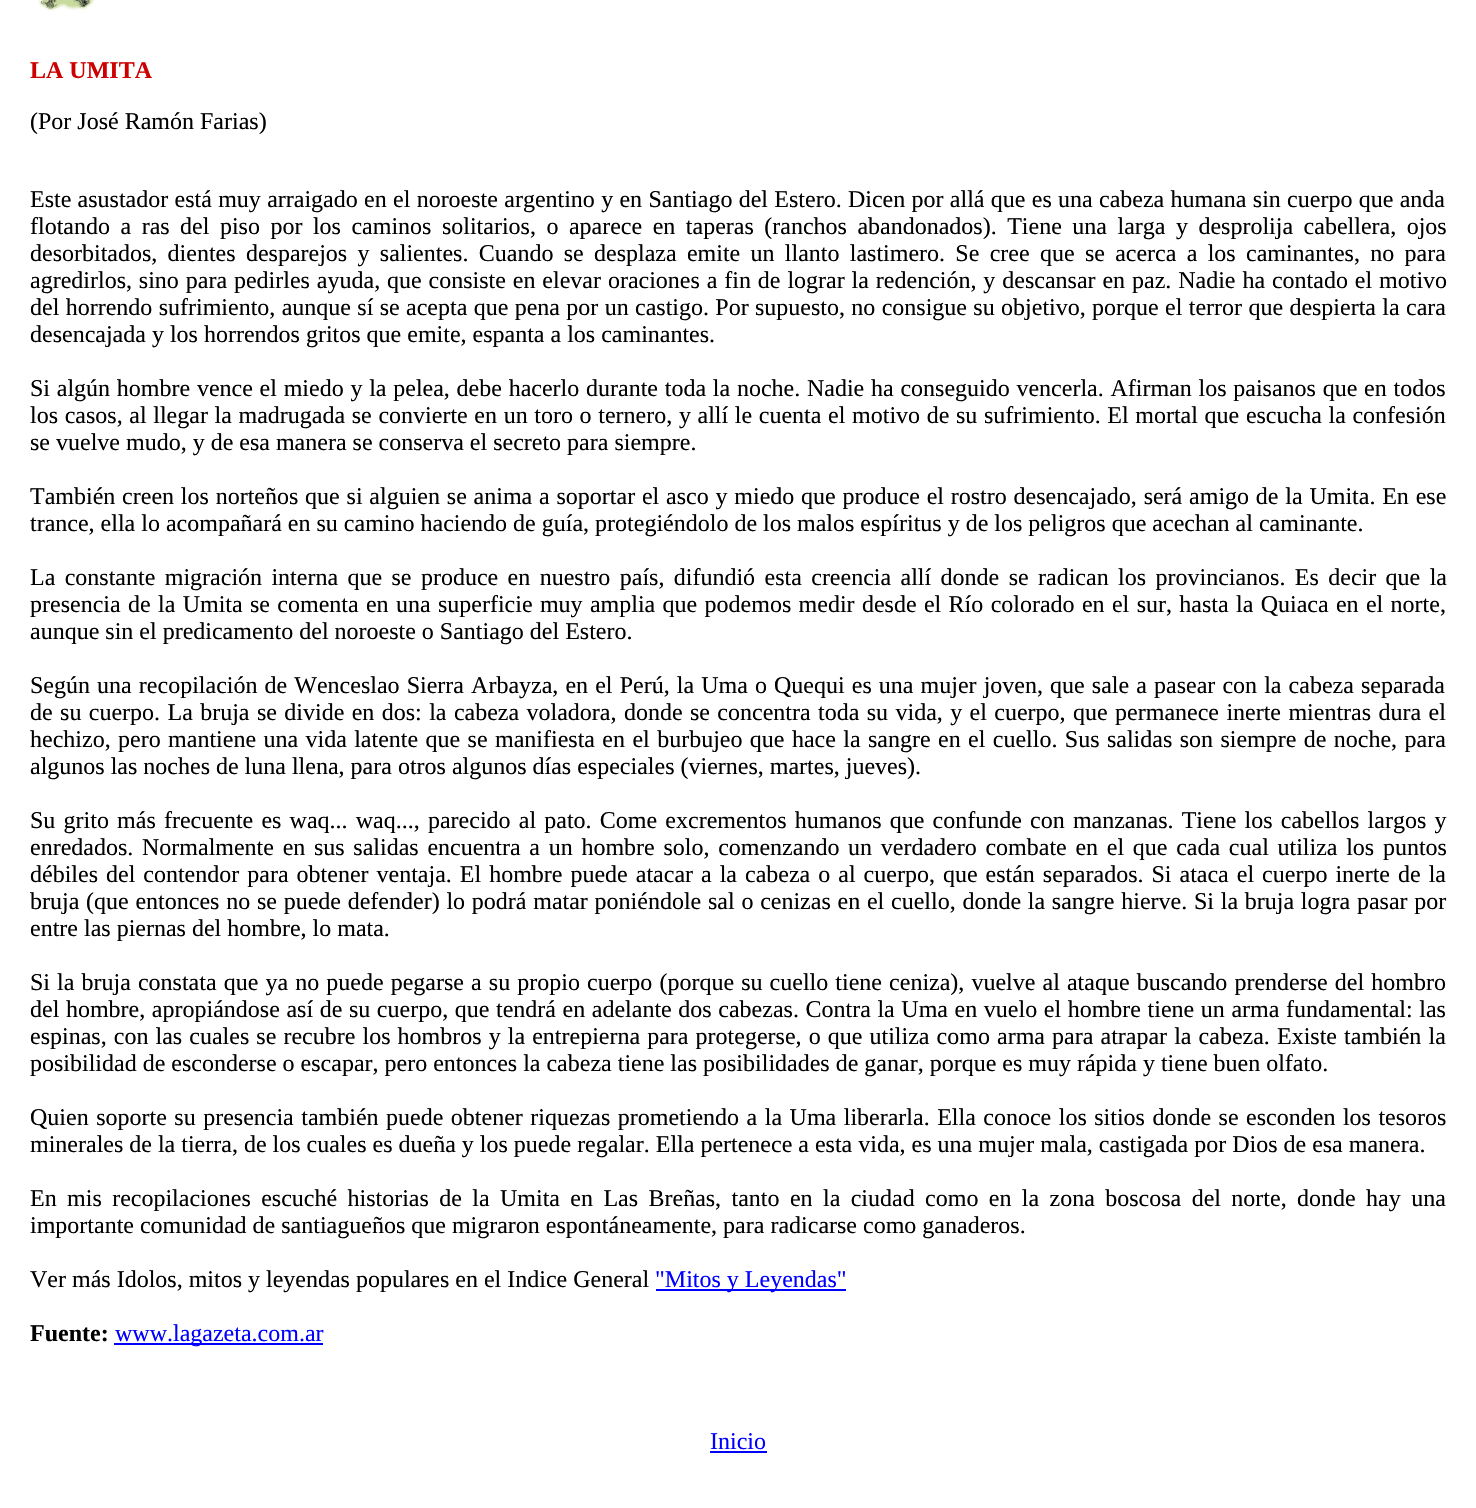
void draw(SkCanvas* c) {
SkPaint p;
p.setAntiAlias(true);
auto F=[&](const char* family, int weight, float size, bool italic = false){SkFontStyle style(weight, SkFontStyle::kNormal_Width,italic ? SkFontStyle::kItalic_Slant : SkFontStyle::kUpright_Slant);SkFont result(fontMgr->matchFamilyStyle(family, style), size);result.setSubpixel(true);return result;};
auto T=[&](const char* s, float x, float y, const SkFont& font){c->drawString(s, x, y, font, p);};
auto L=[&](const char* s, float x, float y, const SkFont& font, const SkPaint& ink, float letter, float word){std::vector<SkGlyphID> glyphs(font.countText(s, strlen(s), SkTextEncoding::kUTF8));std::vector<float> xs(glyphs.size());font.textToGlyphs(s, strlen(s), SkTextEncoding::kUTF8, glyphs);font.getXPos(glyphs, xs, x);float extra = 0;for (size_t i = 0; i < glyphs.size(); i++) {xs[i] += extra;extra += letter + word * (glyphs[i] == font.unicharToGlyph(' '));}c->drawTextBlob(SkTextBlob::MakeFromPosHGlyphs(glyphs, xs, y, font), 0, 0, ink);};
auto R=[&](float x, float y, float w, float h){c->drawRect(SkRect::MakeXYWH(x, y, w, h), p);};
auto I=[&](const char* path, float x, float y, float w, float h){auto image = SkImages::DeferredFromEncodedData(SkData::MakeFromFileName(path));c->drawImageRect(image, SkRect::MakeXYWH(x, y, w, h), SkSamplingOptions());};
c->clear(0xffffffff);
I("1.png",38,0,57,11);
auto f1 = F("Liberation Serif",700,24);
p.setColor(0xffcc0000);
T("LA UMITA",30,78,f1);
auto f2 = F("Liberation Serif",400,24);
p.setColor(0xff000000);
T("(Por José Ramón Farias)",30,129,f2);
L("Este asustador está muy arraigado en el noroeste argentino y en Santiago del Estero. Dicen por allá que es una cabeza humana sin cuerpo que anda",30,207,f2,p,0,.3);
L("flotando a ras del piso por los caminos solitarios, o aparece en taperas (ranchos abandonados). Tiene una larga y desprolija cabellera, ojos",30,234,f2,p,0,4.5);
L("desorbitados, dientes desparejos y salientes. Cuando se desplaza emite un llanto lastimero. Se cree que se acerca a los caminantes, no para",30,261,f2,p,0,4.3);
L("agredirlos, sino para pedirles ayuda, que consiste en elevar oraciones a fin de lograr la redención, y descansar en paz. Nadie ha contado el motivo",30,288,f2,p,0,.9);
L("del horrendo sufrimiento, aunque sí se acepta que pena por un castigo. Por supuesto, no consigue su objetivo, porque el terror que despierta la cara",30,315,f2,p,0,.35);
T("desencajada y los horrendos gritos que emite, espanta a los caminantes.",30,342,f2);
L("Si algún hombre vence el miedo y la pelea, debe hacerlo durante toda la noche. Nadie ha conseguido vencerla. Afirman los paisanos que en todos",30,396,f2,p,0,.75);
L("los casos, al llegar la madrugada se convierte en un toro o ternero, y allí le cuenta el motivo de su sufrimiento. El mortal que escucha la confesión",30,423,f2,p,0,.65);
T("se vuelve mudo, y de esa manera se conserva el secreto para siempre.",30,450,f2);
L("También creen los norteños que si alguien se anima a soportar el asco y miedo que produce el rostro desencajado, será amigo de la Umita. En ese",30,504,f2,p,0,.8);
T("trance, ella lo acompañará en su camino haciendo de guía, protegiéndolo de los malos espíritus y de los peligros que acechan al caminante.",30,531,f2);
L("La constante migración interna que se produce en nuestro país, difundió esta creencia allí donde se radican los provincianos. Es decir que la",30,585,f2,p,0,3.4);
L("presencia de la Umita se comenta en una superficie muy amplia que podemos medir desde el Río colorado en el sur, hasta la Quiaca en el norte,",30,612,f2,p,0,1.35);
T("aunque sin el predicamento del noroeste o Santiago del Estero.",30,639,f2);
L("Según una recopilación de Wenceslao Sierra Arbayza, en el Perú, la Uma o Quequi es una mujer joven, que sale a pasear con la cabeza separada",30,693,f2,p,0,1.1);
L("de su cuerpo. La bruja se divide en dos: la cabeza voladora, donde se concentra toda su vida, y el cuerpo, que permanece inerte mientras dura el",30,720,f2,p,0,1.4);
L("hechizo, pero mantiene una vida latente que se manifiesta en el burbujeo que hace la sangre en el cuello. Sus salidas son siempre de noche, para",30,747,f2,p,0,1.4);
T("algunos las noches de luna llena, para otros algunos días especiales (viernes, martes, jueves).",30,774,f2);
L("Su grito más frecuente es waq... waq..., parecido al pato. Come excrementos humanos que confunde con manzanas. Tiene los cabellos largos y",30,828,f2,p,0,2.2);
L("enredados. Normalmente en sus salidas encuentra a un hombre solo, comenzando un verdadero combate en el que cada cual utiliza los puntos",30,855,f2,p,0,2.7);
L("débiles del contendor para obtener ventaja. El hombre puede atacar a la cabeza o al cuerpo, que están separados. Si ataca el cuerpo inerte de la",30,882,f2,p,0,2);
L("bruja (que entonces no se puede defender) lo podrá matar poniéndole sal o cenizas en el cuello, donde la sangre hierve. Si la bruja logra pasar por",30,909,f2,p,0,.75);
T("entre las piernas del hombre, lo mata.",30,936,f2);
L("Si la bruja constata que ya no puede pegarse a su propio cuerpo (porque su cuello tiene ceniza), vuelve al ataque buscando prenderse del hombro",30,990,f2,p,0,1.1);
L("del hombre, apropiándose así de su cuerpo, que tendrá en adelante dos cabezas. Contra la Uma en vuelo el hombre tiene un arma fundamental: las",30,1017,f2,p,0,.6);
L("espinas, con las cuales se recubre los hombros y la entrepierna para protegerse, o que utiliza como arma para atrapar la cabeza. Existe también la",30,1044,f2,p,0,1.1);
T("posibilidad de esconderse o escapar, pero entonces la cabeza tiene las posibilidades de ganar, porque es muy rápida y tiene buen olfato.",30,1071,f2);
L("Quien soporte su presencia también puede obtener riquezas prometiendo a la Uma liberarla. Ella conoce los sitios donde se esconden los tesoros",30,1125,f2,p,0,1.5);
T("minerales de la tierra, de los cuales es dueña y los puede regalar. Ella pertenece a esta vida, es una mujer mala, castigada por Dios de esa manera.",30,1152,f2);
L("En mis recopilaciones escuché historias de la Umita en Las Breñas, tanto en la ciudad como en la zona boscosa del norte, donde hay una",30,1206,f2,p,0,4.4);
T("importante comunidad de santiagueños que migraron espontáneamente, para radicarse como ganaderos.",30,1233,f2);
T("Ver más Idolos, mitos y leyendas populares en el Indice General",30,1287,f2);
p.setColor(0xff0000ff);
R(656,1289,190,2);
T("\"Mitos y Leyendas\"",655,1287,f2);
p.setColor(0xff000000);
T("Fuente:",30,1341,f1);
p.setColor(0xff0000ff);
R(114,1343,209,2);
T("www.lagazeta.com.ar",115,1341,f2);
T("Inicio",710,1449,f2);
R(710,1451,57,2);
}
